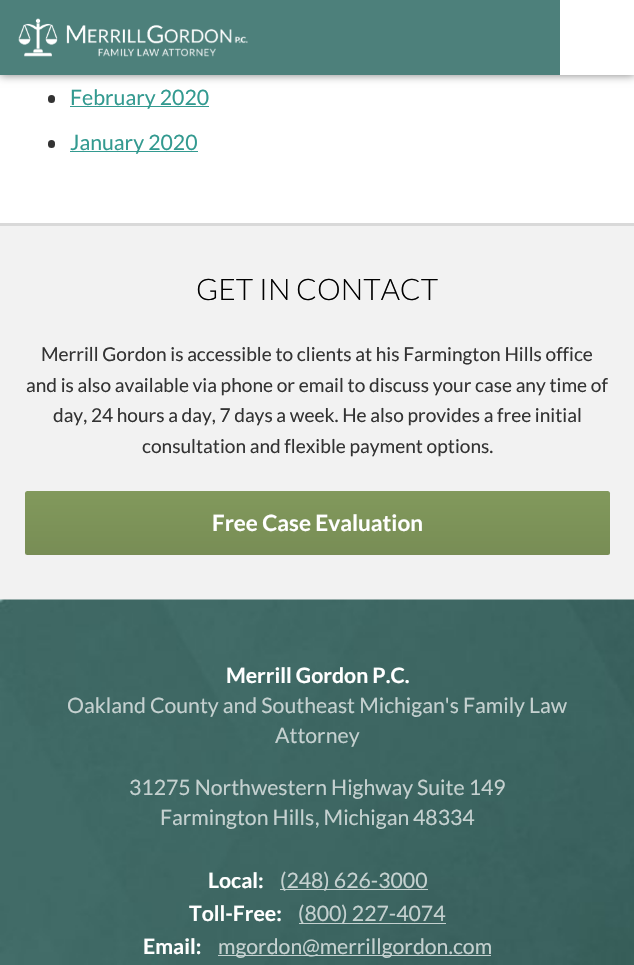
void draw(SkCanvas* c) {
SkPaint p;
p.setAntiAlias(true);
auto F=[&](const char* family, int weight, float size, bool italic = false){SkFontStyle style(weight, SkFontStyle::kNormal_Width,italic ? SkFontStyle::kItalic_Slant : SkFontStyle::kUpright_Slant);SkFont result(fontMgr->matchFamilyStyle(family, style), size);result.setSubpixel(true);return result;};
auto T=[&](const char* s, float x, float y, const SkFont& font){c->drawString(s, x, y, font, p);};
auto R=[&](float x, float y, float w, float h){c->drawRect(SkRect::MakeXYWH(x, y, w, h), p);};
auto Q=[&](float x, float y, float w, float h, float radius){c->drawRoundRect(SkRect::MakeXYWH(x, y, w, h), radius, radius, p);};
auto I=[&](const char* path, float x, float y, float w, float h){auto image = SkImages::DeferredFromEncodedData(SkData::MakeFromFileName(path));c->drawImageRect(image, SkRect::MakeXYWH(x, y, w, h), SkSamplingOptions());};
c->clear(0xffffffff);
p.setColor(0x80000000);
p.setMaskFilter(SkMaskFilter::MakeBlur(kNormal_SkBlurStyle, 4.5));
c->drawRect(SkRect::MakeXYWH(0,0,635,75),p);
p.setMaskFilter(nullptr);
p.setColor(0xff4d807b);
R(0,0,560,75);
I("1.png",18,18,230,39);
c->save();
c->clipRect(SkRect::MakeXYWH(560,0,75,75));
p.setColor(0xffffffff);
c->drawCircle(597.5,37.5,93.5,p);
c->restore();
p.setColor(0xff333333);
Q(48,95,7,8,3.5);
p.setColor(0xff339a90);
R(70,106,139,1);
auto f1 = F("Lato",400,21.25);
T("February 2020",70,105,f1);
p.setColor(0xff333333);
Q(48,140,7,8,3.5);
p.setColor(0xff339a90);
R(70,151,128,1);
T("January 2020",70,150,f1);
p.setColor(0xfff2f2f2);
R(0,226,634,374);
p.setColor(0xffd9d9d9);
R(0,223,634,3);
auto f2 = F("Lato",300,29.75);
p.setColor(0xff000000);
T("GET IN CONTACT",196,300,f2);
auto f3 = F("Lato",400,19.1);
p.setColor(0xff333333);
T("Merrill Gordon is accessible to clients at his Farmington Hills office",41,361,f3);
T("and is also available via phone or email to discuss your case any time of",26,392,f3);
T("day, 24 hours a day, 7 days a week. He also provides a free initial",53,422,f3);
T("consultation and flexible payment options.",142,453,f3);
p.setColor(0xff82995c);
Q(25,491,585,64,2.5);
{
const SkColor colors[] = {0x00000000,0x14000000};
const float stops[] = {0,1};
const SkPoint ends[] = {{318,491}, {318,555}};
p.setShader(SkGradientShader::MakeLinear(ends, colors, stops, 2, SkTileMode::kClamp));
p.setAlpha(255);
}
Q(25,491,585,64,2.5);
auto f4 = F("Lato",700,22.5);
p.setShader(nullptr);
p.setColor(0xffffffff);
T("Free Case Evaluation",212,531,f4);
I("2.png",0,599,634,366);
auto f5 = F("Lato",700,21.25);
T("Merrill Gordon P.C.",226,683,f5);
p.setColor(0xffc5d1d0);
T("Oakland County and Southeast Michigan's Family Law",67,713,f1);
T("Attorney",275,743,f1);
T("31275 Northwestern Highway",129,795,f1);
T("Suite 149",417,795,f1);
T("Farmington Hills",160,825,f1);
T(", Michigan",315,825,f1);
T("48334",413,825,f1);
p.setColor(0xffffffff);
T("Local:",208,888,f5);
p.setColor(0xb3ffffff);
R(280,889,148,1);
p.setColor(0xffc5d1d0);
T("(248) 626-3000",280,888,f1);
p.setColor(0xffffffff);
T("Toll-Free:",189,921,f5);
p.setColor(0xb3ffffff);
R(299,923,147,1);
p.setColor(0xffc5d1d0);
T("(800) 227-4074",298,921,f1);
p.setColor(0xffffffff);
T("Email:",143,954,f5);
p.setColor(0xb3ffffff);
R(218,955,273,1);
p.setColor(0xffc5d1d0);
T("mgordon@merrillgordon.com",218,954,f1);
}
